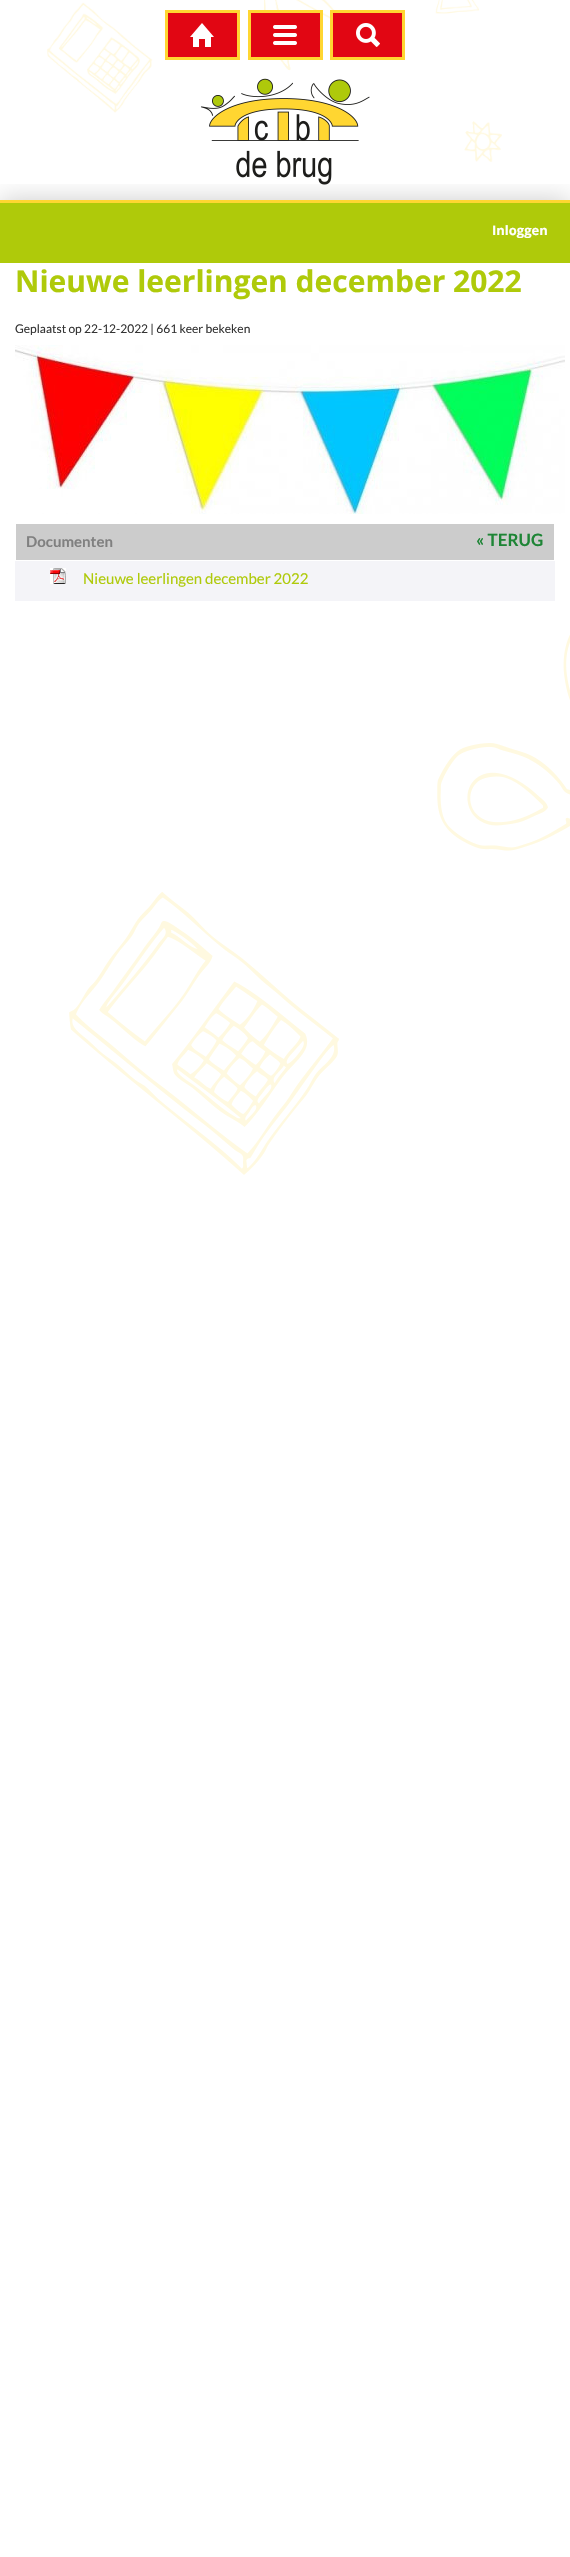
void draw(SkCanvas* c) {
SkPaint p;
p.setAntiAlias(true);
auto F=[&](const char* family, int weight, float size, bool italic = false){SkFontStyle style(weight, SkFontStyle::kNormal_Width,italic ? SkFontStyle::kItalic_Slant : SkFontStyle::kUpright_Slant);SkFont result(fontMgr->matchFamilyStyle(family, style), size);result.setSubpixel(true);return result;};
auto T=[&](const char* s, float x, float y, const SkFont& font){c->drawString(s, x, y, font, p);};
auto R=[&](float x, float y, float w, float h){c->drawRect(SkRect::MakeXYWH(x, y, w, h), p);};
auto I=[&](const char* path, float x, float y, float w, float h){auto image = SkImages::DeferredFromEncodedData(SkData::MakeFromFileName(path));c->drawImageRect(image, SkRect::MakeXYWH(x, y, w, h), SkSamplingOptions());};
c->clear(0xffffffff);
I("1.png",47,0,455,162);
p.setColor(0xffe10613);
c->drawRect(SkRect::MakeXYWH(166.5,11.5,72,47),p);
p.setStroke(true);
p.setStrokeWidth(3);
p.setColor(0xffffd631);
c->drawRect(SkRect::MakeXYWH(166.5,11.5,72,47),p);
I("2.png",190,23,24,24);
p.setStroke(false);
p.setColor(0xffe10613);
c->drawRect(SkRect::MakeXYWH(249.5,11.5,72,47),p);
p.setStroke(true);
p.setColor(0xffffd631);
c->drawRect(SkRect::MakeXYWH(249.5,11.5,72,47),p);
I("3.png",273,25,24,20);
p.setStroke(false);
p.setColor(0xffe10613);
c->drawRect(SkRect::MakeXYWH(331.5,11.5,72,47),p);
p.setStroke(true);
p.setColor(0xffffd631);
c->drawRect(SkRect::MakeXYWH(331.5,11.5,72,47),p);
I("4.png",356,23,24,24);
I("5.png",200,78,170,107);
c->save();
c->clipRect(SkRect::MakeXYWH(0,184,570,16));
p.setStroke(false);
p.setColor(0x33000000);
p.setMaskFilter(SkMaskFilter::MakeBlur(kNormal_SkBlurStyle, 12.5));
c->drawRect(SkRect::MakeXYWH(0,200,570,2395),p);
p.setMaskFilter(nullptr);
c->restore();
I("6.png",69,635,501,540);
p.setColor(0xffafca0a);
R(0,203,570,60);
p.setColor(0xffffd631);
R(0,200,570,3);
auto f1 = F("Open Sans",700,13);
p.setColor(0xffffffff);
T("Inloggen",492,235,f1);
auto f2 = F("Open Sans",700,30);
p.setColor(0xffafca0a);
T("Nieuwe leerlingen december 2022",15,292,f2);
auto f3 = F("Lato",400,12);
p.setColor(0xff333333);
T("Geplaatst op 22-12-2022 | 661 keer bekeken",15,333,f3);
I("7.png",15,345,550,169);
p.setColor(0xffcccccc);
R(16,524,538,36);
auto f4 = F("Lato",700,15);
p.setColor(0xff808080);
T("Documenten",26,547,f4);
p.setColor(0xfff4f4f8);
R(15,561,540,40);
I("8.png",50,568,16,16);
auto f5 = F("Lato",400,15);
p.setColor(0xffafca0a);
T("Nieuwe leerlingen december 2022",83,584,f5);
auto f6 = F("Lato",700,17);
p.setColor(0xff1e8536);
T("« TERUG",476,546,f6);
}
